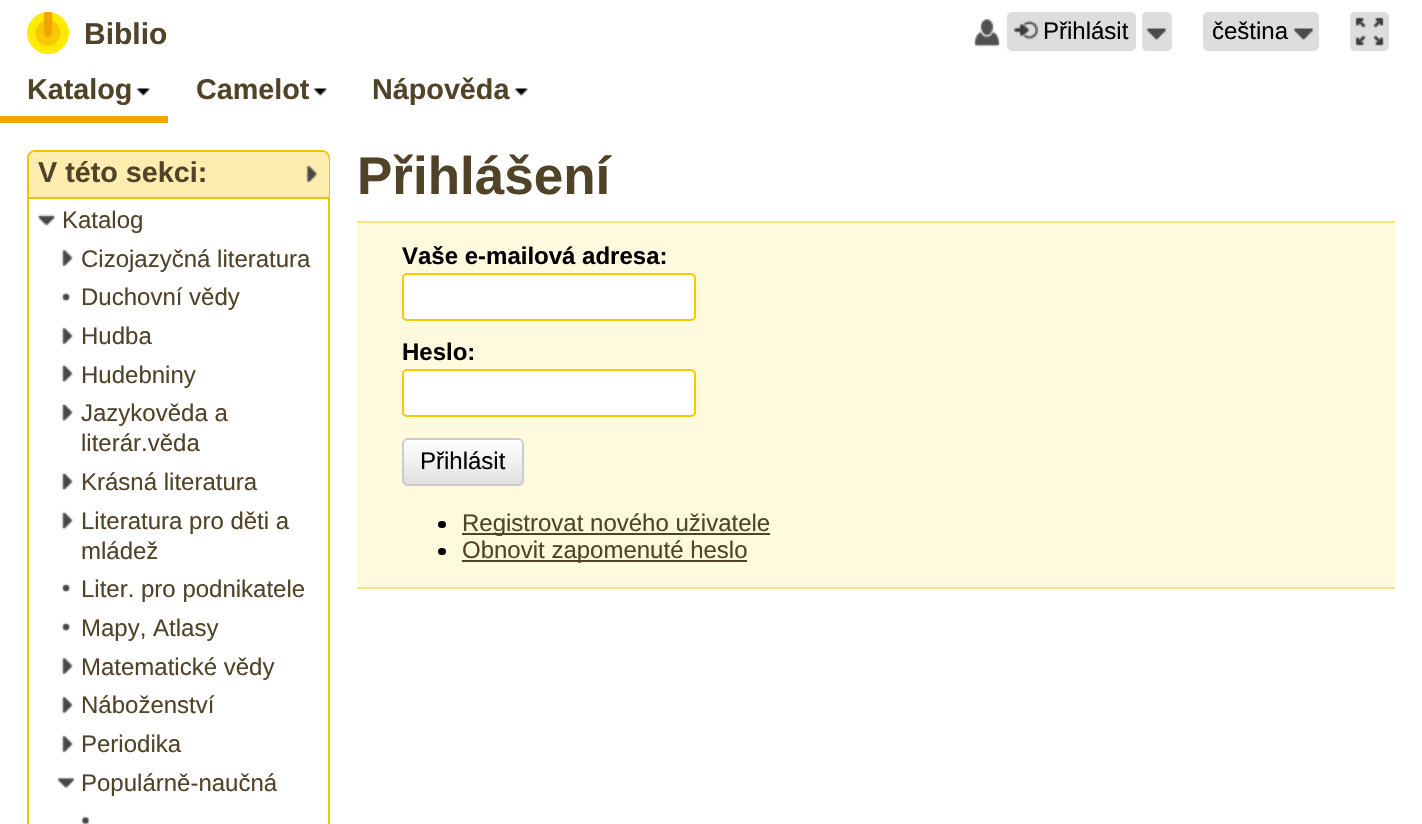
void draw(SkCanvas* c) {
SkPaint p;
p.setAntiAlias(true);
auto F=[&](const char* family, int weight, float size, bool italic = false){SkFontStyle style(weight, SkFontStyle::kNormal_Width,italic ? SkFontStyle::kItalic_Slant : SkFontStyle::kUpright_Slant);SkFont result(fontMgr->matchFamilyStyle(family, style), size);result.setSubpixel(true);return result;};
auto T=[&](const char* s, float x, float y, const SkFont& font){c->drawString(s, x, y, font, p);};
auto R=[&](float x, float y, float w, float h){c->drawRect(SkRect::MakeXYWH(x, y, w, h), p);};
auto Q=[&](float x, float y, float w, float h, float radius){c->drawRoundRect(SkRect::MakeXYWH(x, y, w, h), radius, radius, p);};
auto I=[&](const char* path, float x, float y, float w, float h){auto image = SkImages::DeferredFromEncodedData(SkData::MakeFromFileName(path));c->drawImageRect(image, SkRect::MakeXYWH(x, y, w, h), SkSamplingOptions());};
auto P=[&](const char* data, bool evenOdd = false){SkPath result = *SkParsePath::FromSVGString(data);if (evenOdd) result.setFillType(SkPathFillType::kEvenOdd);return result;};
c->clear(0xffffffff);
I("1.png",27,12,42,42);
auto f1 = F("Liberation Sans",700,30);
p.setColor(0xff504328);
T("Biblio",84,44,f1);
I("2.png",974,19,26,28);
p.setColor(0xffdddddd);
Q(1007,12,129,39,5);
I("3.png",1014,20,24,20);
auto f2 = F("Liberation Sans",400,24);
p.setColor(0xff000000);
T("Přihlásit",1043,39,f2);
p.setColor(0xffdddddd);
Q(1142,12,30,39,5);
I("4.png",1146,28,21,12);
Q(1203,12,116,39,5);
p.setColor(0xff000000);
T("čeština",1212,39,f2);
I("4.png",1293,28,21,12);
p.setColor(0xffdddddd);
Q(1350,12,39,39,5);
I("5.png",1355,17,29,29);
p.setColor(0xfff5a500);
R(0,116,168,7);
auto f3 = F("Liberation Sans",700,28.75);
p.setColor(0xff504328);
T("Katalog",27,99,f3);
I("6.png",136,88,14,9);
T("Camelot",196,99,f3);
I("7.png",313,88,14,9);
T("Nápověda",372,99,f3);
I("8.png",514,88,14,9);
p.setStroke(true);
p.setStrokeWidth(2);
p.setColor(0xffecc500);
c->drawRoundRect(SkRect::MakeXYWH(28,151,301,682),7,7,p);
p.setStroke(false);
p.setColor(0xfffeedae);
c->drawPath(P("M37 152h284c4.5 0 8 3.5 8 8v38h-300v-38c0-4.5 3.5-8 8-8z"),p);
p.setColor(0xffecc500);
R(29,197,300,2);
p.setColor(0xff504328);
T("V této sekci:",38,182,f3);
I("9.png",306,165,12,18);
I("10.png",37,214,19,13);
T("Katalog",62,228,f2);
I("11.png",61,249,13,18);
T("Cizojazyčná literatura",81,267,f2);
I("12.png",61,292,10,10);
T("Duchovní vědy",81,305,f2);
I("11.png",61,327,13,18);
T("Hudba",81,344,f2);
I("13.png",61,364,13,19);
T("Hudebniny",81,383,f2);
I("13.png",61,403,13,19);
T("Jazykověda a",81,421,f2);
T("literár.věda",81,451,f2);
I("13.png",61,472,13,19);
T("Krásná literatura",81,490,f2);
I("13.png",61,511,13,19);
T("Literatura pro děti a",81,529,f2);
T("mládež",81,559,f2);
I("12.png",61,583,10,10);
T("Liter. pro podnikatele",81,597,f2);
I("12.png",61,622,10,10);
T("Mapy, Atlasy",81,636,f2);
I("11.png",61,657,13,18);
T("Matematické vědy",81,675,f2);
I("11.png",61,696,13,18);
T("Náboženství",81,713,f2);
I("11.png",61,735,13,18);
T("Periodika",81,752,f2);
I("14.png",57,777,18,12);
T("Populárně-naučná",81,791,f2);
I("15.png",80,815,11,9);
auto f4 = F("Liberation Sans",700,53);
T("Přihlášení",357,194,f4);
p.setColor(0xfffff9de);
R(357,223,1038,364);
p.setColor(0xfffce580);
R(357,221,1038,2);
R(357,587,1038,2);
auto f5 = F("Liberation Sans",700,24);
p.setColor(0xff000000);
T("Vaše e-mailová adresa:",402,264,f5);
p.setColor(0xffffffff);
c->drawRoundRect(SkRect::MakeXYWH(403,274,292,46),4,4,p);
p.setStroke(true);
p.setColor(0xfffac800);
c->drawRoundRect(SkRect::MakeXYWH(403,274,292,46),4,4,p);
p.setStroke(false);
p.setColor(0xff000000);
T("Heslo:",402,360,f5);
p.setColor(0xffffffff);
c->drawRoundRect(SkRect::MakeXYWH(403,370,292,46),4,4,p);
p.setStroke(true);
p.setColor(0xfffac800);
c->drawRoundRect(SkRect::MakeXYWH(403,370,292,46),4,4,p);
c->save();
c->clipPath(P("M408 438h110c3.5 0 6 2.5 6 6v36c0 3.5-2.5 6-6 6h-110c-3.5 0-6-2.5-6-6v-36c0-3.5 2.5-6 6-6z"),true);
p.setStroke(false);
{
const SkColor colors[] = {0xffffffff,0xffe0e0e0};
const float stops[] = {0,1};
const SkPoint ends[] = {{463,440}, {463,485}};
p.setShader(SkGradientShader::MakeLinear(ends, colors, stops, 2, SkTileMode::kClamp));
p.setAlpha(255);
}
R(402,440,122,45);
c->restore();
p.setStroke(true);
p.setShader(nullptr);
p.setColor(0xffcccccc);
c->drawRoundRect(SkRect::MakeXYWH(403,439,120,46),5,5,p);
p.setStroke(false);
p.setColor(0xff000000);
T("Přihlásit",420,469,f2);
Q(438,521,8,7,3.5);
p.setColor(0xff504328);
R(462,533,308,2);
T("Registrovat nového uživatele",462,531,f2);
p.setColor(0xff000000);
Q(438,548,8,7,3.5);
p.setColor(0xff504328);
R(462,560,285,2);
T("Obnovit zapomenuté heslo",462,558,f2);
}
